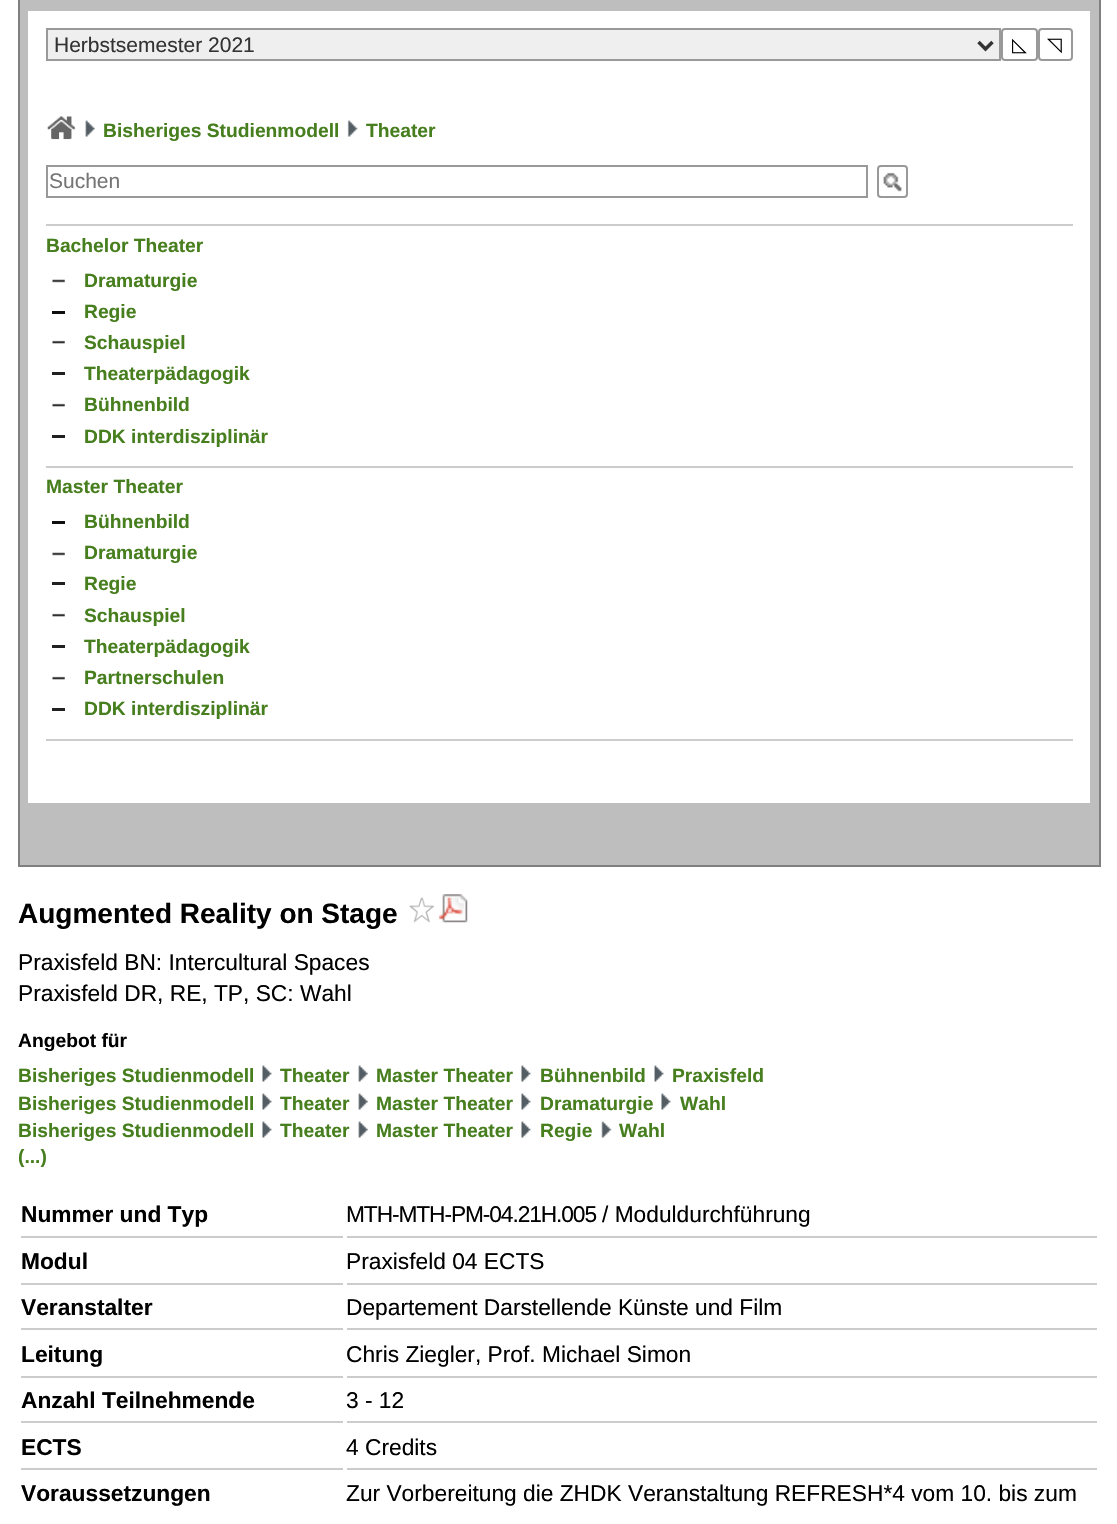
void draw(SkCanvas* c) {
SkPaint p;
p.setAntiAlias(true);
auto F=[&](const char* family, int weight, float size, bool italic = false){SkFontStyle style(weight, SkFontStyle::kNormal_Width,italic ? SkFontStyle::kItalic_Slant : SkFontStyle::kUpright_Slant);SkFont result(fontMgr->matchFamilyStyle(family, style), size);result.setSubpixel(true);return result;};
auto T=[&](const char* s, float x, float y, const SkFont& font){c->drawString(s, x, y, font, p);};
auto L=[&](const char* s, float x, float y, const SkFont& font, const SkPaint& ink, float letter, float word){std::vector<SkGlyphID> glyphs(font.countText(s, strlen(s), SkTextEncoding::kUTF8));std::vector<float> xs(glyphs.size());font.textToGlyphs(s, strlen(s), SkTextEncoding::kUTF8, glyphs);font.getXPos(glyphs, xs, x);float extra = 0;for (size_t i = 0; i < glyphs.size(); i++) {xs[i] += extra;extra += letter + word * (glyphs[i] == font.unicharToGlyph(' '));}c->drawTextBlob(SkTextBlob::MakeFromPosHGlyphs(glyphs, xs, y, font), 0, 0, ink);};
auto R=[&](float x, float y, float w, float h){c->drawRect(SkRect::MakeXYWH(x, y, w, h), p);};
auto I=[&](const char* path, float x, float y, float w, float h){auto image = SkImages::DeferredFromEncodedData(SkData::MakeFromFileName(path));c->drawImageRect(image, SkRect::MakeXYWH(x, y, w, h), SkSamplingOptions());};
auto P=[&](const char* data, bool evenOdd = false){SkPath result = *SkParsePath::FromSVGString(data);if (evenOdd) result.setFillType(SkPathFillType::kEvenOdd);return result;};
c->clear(0xffffffff);
p.setColor(0xffbebebe);
R(19,0,1080,2);
p.setColor(0xff808080);
R(1099,0,2,866);
R(18,0,2,2);
p.setColor(0xffbebebe);
R(20,2,1079,863);
p.setColor(0xff808080);
R(18,865,1083,2);
R(18,2,2,864);
p.setColor(0xffffffff);
R(28,11,1062,792);
p.setColor(0xffefefef);
c->drawRect(SkRect::MakeXYWH(47,29,953,31),p);
p.setStroke(true);
p.setStrokeWidth(2);
p.setColor(0xff999999);
c->drawRect(SkRect::MakeXYWH(47,29,953,31),p);
p.setStrokeWidth(3.5);
p.setColor(0xff333333);
c->drawPath(P("M978.5 42l7 7l7-7"),p);
auto f1 = F("Liberation Sans",400,21);
p.setStroke(false);
T("Herbstsemester 2021",54,52,f1);
p.setStroke(true);
p.setStrokeWidth(2);
p.setColor(0xff999999);
c->drawRoundRect(SkRect::MakeXYWH(1002,29,35,31),3,3,p);
auto f2 = F("DejaVu Sans",400,19.25);
p.setStroke(false);
p.setColor(0xff000000);
T("◺",1012,51,f2);
p.setStroke(true);
p.setColor(0xff999999);
c->drawRoundRect(SkRect::MakeXYWH(1039,29,33,31),3,3,p);
p.setStroke(false);
p.setColor(0xff000000);
T("◹",1047,51,f2);
I("1.png",47,116,29,24);
I("2.png",85,120,10,17);
auto f3 = F("Liberation Sans",700,19.25);
p.setColor(0xff477e1e);
T("Bisheriges Studienmodell",103,137,f3);
I("3.png",347,120,11,17);
T("Theater",366,137,f3);
p.setStroke(true);
p.setColor(0xff999999);
c->drawRect(SkRect::MakeXYWH(47,166,820,31),p);
p.setStroke(false);
p.setColor(0xff757575);
T("Suchen",49,188,f1);
I("4.png",883,172,19,20);
p.setStroke(true);
p.setColor(0xff999999);
c->drawRoundRect(SkRect::MakeXYWH(878,166,29,31),3,3,p);
p.setStroke(false);
p.setColor(0xffcccccc);
R(46,224,1027,2);
R(46,466,1027,2);
p.setColor(0xff477e1e);
T("Bachelor Theater",46,252,f3);
I("5.png",52,279,13,4);
T("Dramaturgie",84,287,f3);
p.setColor(0xff0f0f0f);
R(52,311,13,3);
p.setColor(0xff477e1e);
T("Regie",84,318,f3);
I("6.png",52,340,13,4);
T("Schauspiel",84,349,f3);
p.setColor(0xff212121);
R(52,372,13,3);
p.setColor(0xff477e1e);
T("Theaterpädagogik",84,380,f3);
I("6.png",52,403,13,4);
T("Bühnenbild",84,411,f3);
p.setColor(0xff212121);
R(52,435,13,3);
p.setColor(0xff477e1e);
T("DDK interdisziplinär",84,443,f3);
p.setColor(0xffcccccc);
R(46,739,1027,2);
p.setColor(0xff477e1e);
T("Master Theater",46,493,f3);
p.setColor(0xff0f0f0f);
R(52,521,13,3);
p.setColor(0xff477e1e);
T("Bühnenbild",84,528,f3);
I("5.png",52,552,13,4);
T("Dramaturgie",84,559,f3);
p.setColor(0xff212121);
R(52,582,13,3);
p.setColor(0xff477e1e);
T("Regie",84,590,f3);
I("6.png",52,613,13,4);
T("Schauspiel",84,622,f3);
p.setColor(0xff212121);
R(52,645,13,3);
p.setColor(0xff477e1e);
T("Theaterpädagogik",84,653,f3);
I("6.png",52,676,13,4);
T("Partnerschulen",84,684,f3);
p.setColor(0xff212121);
R(52,708,13,3);
p.setColor(0xff477e1e);
T("DDK interdisziplinär",84,715,f3);
auto f4 = F("Liberation Sans",700,28);
p.setColor(0xff000000);
T("Augmented Reality on Stage",18,923,f4);
I("7.png",409,897,25,26);
I("8.png",439,894,29,29);
auto f5 = F("Liberation Sans",400,22.75);
T("Praxisfeld BN: Intercultural Spaces",18,970,f5);
T("Praxisfeld DR, RE, TP, SC: Wahl",18,1001,f5);
T("Angebot für",18,1047,f3);
p.setColor(0xff477e1e);
T("Bisheriges Studienmodell",18,1082,f3);
I("9.png",262,1065,10,17);
T("Theater",280,1082,f3);
I("2.png",358,1065,10,17);
T("Master Theater",376,1082,f3);
I("9.png",521,1065,10,17);
T("Bühnenbild",540,1082,f3);
I("10.png",654,1065,10,17);
T("Praxisfeld",672,1082,f3);
T("Bisheriges Studienmodell",18,1110,f3);
I("9.png",262,1093,10,17);
T("Theater",280,1110,f3);
I("2.png",358,1093,10,17);
T("Master Theater",376,1110,f3);
I("9.png",521,1093,10,17);
T("Dramaturgie",540,1110,f3);
I("9.png",661,1093,10,17);
T("Wahl",680,1110,f3);
T("Bisheriges Studienmodell",18,1137,f3);
I("9.png",262,1121,10,17);
T("Theater",280,1137,f3);
I("2.png",358,1121,10,17);
T("Master Theater",376,1137,f3);
I("9.png",521,1121,10,17);
T("Regie",540,1137,f3);
I("11.png",601,1121,11,17);
T("Wahl",619,1137,f3);
T("(...)",18,1163,f3);
p.setColor(0xffcccccc);
R(21,1236,322,2);
auto f6 = F("Liberation Sans",700,22.75);
p.setColor(0xff000000);
T("Nummer und Typ",21,1222,f6);
p.setColor(0xffcccccc);
R(347,1236,750,2);
p.setColor(0xff000000);
L("MTH-MTH-PM-04.21H.005",346,1222,f5,p,-1.1,0);
T("/ Moduldurchführung",602,1222,f5);
p.setColor(0xffcccccc);
R(21,1283,322,2);
p.setColor(0xff000000);
T("Modul",21,1269,f6);
p.setColor(0xffcccccc);
R(347,1283,750,2);
p.setColor(0xff000000);
T("Praxisfeld 04 ECTS",346,1269,f5);
p.setColor(0xffcccccc);
R(21,1328,322,2);
p.setColor(0xff000000);
T("Veranstalter",21,1315,f6);
p.setColor(0xffcccccc);
R(347,1328,750,2);
p.setColor(0xff000000);
T("Departement Darstellende Künste und Film",346,1315,f5);
p.setColor(0xffcccccc);
R(21,1376,322,2);
p.setColor(0xff000000);
T("Leitung",21,1362,f6);
p.setColor(0xffcccccc);
R(347,1376,750,2);
p.setColor(0xff000000);
T("Chris Ziegler, Prof. Michael Simon",346,1362,f5);
p.setColor(0xffcccccc);
R(21,1421,322,2);
p.setColor(0xff000000);
T("Anzahl Teilnehmende",21,1408,f6);
p.setColor(0xffcccccc);
R(347,1421,750,2);
p.setColor(0xff000000);
T("3 - 12",346,1408,f5);
p.setColor(0xffcccccc);
R(21,1468,322,2);
p.setColor(0xff000000);
T("ECTS",21,1455,f6);
p.setColor(0xffcccccc);
R(347,1468,750,2);
p.setColor(0xff000000);
T("4 Credits",346,1455,f5);
T("Voraussetzungen",21,1501,f6);
T("Zur Vorbereitung die ZHDK Veranstaltung REFRESH*4 vom 10. bis zum",346,1501,f5);
}
